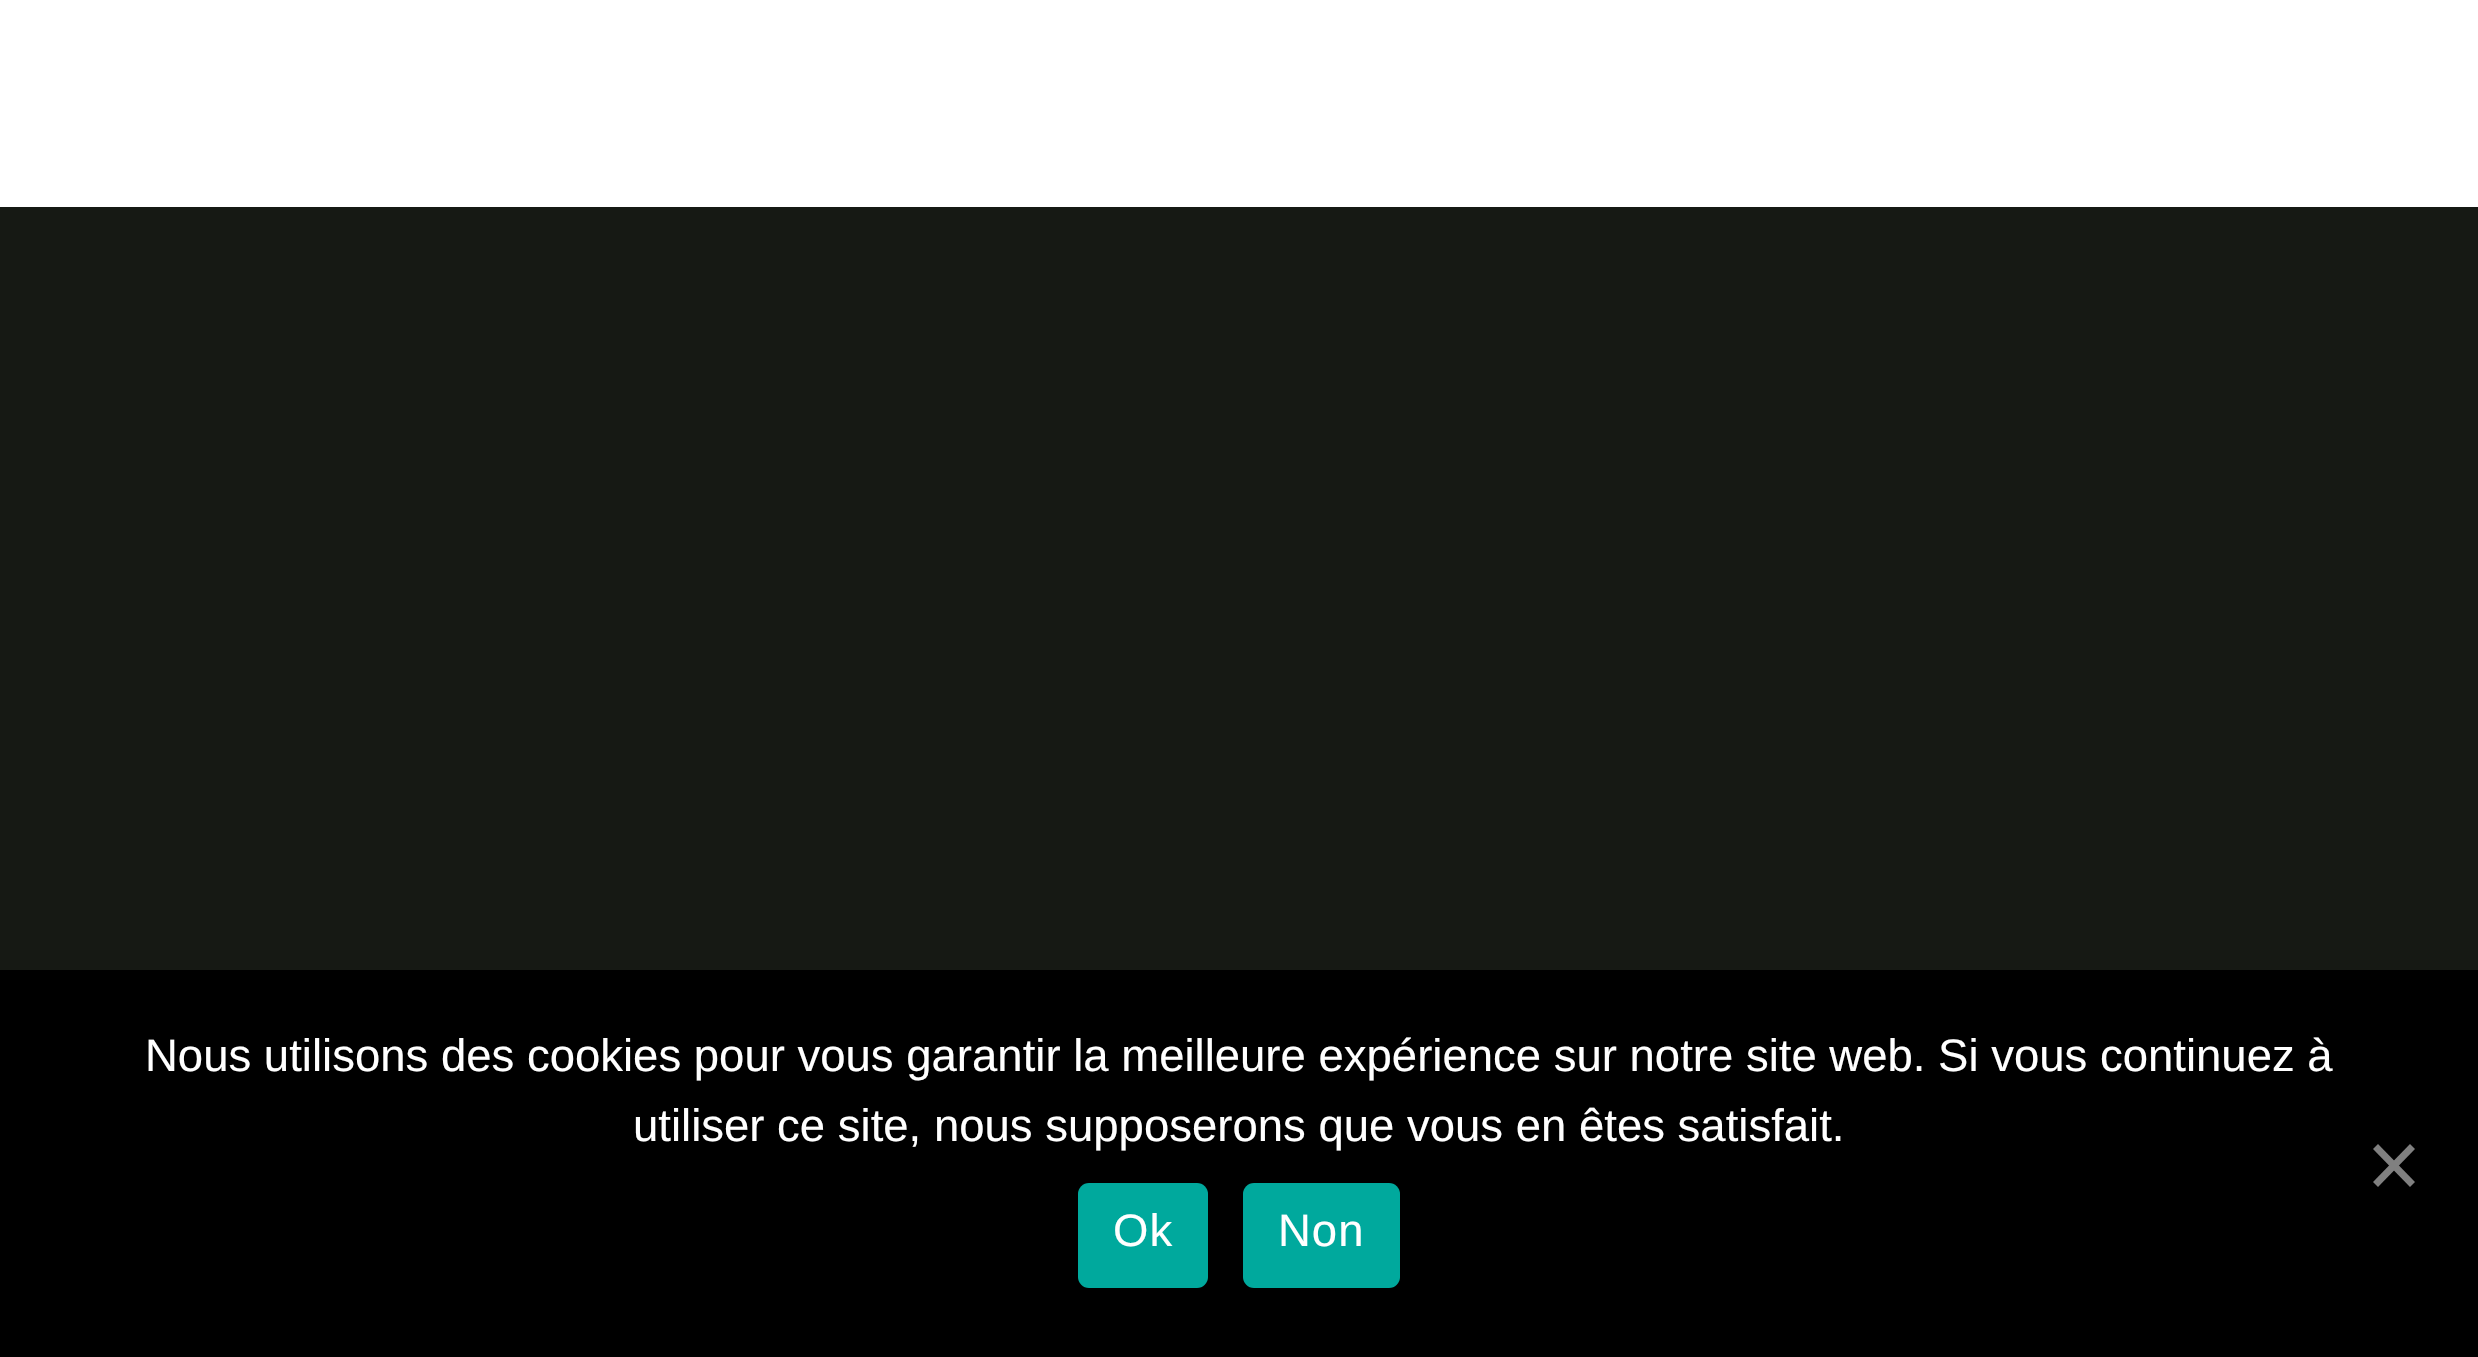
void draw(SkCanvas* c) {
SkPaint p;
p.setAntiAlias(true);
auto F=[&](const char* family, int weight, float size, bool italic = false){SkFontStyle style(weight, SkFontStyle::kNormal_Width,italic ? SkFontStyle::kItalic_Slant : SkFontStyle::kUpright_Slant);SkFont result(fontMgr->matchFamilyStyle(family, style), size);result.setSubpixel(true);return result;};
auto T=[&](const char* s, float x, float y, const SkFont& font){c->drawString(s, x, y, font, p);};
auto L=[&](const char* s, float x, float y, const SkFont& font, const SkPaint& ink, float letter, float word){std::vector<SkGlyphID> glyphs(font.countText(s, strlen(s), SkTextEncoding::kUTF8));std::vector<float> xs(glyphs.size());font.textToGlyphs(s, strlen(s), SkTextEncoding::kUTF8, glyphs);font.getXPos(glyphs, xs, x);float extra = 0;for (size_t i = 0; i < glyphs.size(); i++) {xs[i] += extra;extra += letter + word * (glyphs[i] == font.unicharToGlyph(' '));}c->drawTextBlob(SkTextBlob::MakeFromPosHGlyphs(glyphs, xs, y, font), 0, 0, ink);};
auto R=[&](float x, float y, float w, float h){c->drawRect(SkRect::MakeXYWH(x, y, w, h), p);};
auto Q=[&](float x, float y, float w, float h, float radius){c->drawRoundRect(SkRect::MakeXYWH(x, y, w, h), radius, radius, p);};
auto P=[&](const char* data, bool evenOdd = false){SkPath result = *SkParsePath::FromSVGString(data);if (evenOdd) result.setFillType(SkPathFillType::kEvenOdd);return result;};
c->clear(0xffffffff);
p.setColor(0xff161914);
R(0,207,2478,763);
p.setColor(0xff000000);
R(0,970,2478,387);
auto f1 = F("Liberation Sans",400,45.5);
p.setColor(0xffffffff);
T("Nous utilisons des cookies pour vous garantir la meilleure expérience sur notre site web. Si vous continuez à",145,1071,f1);
T("utiliser ce site, nous supposerons que vous en êtes satisfait.",633,1141,f1);
p.setColor(0xff808080);
c->drawPath(P("M2410 1144l5 5l-37 38l-5-5z"),p);
c->drawPath(P("M2373 1149l5-5l37 38l-5 5z"),p);
p.setColor(0xff00a99d);
Q(1078,1183,130,105,11);
p.setColor(0xffffffff);
L("Ok",1113,1246,f1,p,1,0);
p.setColor(0xff00a99d);
Q(1243,1183,157,105,11);
p.setColor(0xffffffff);
L("Non",1278,1246,f1,p,1,0);
}
